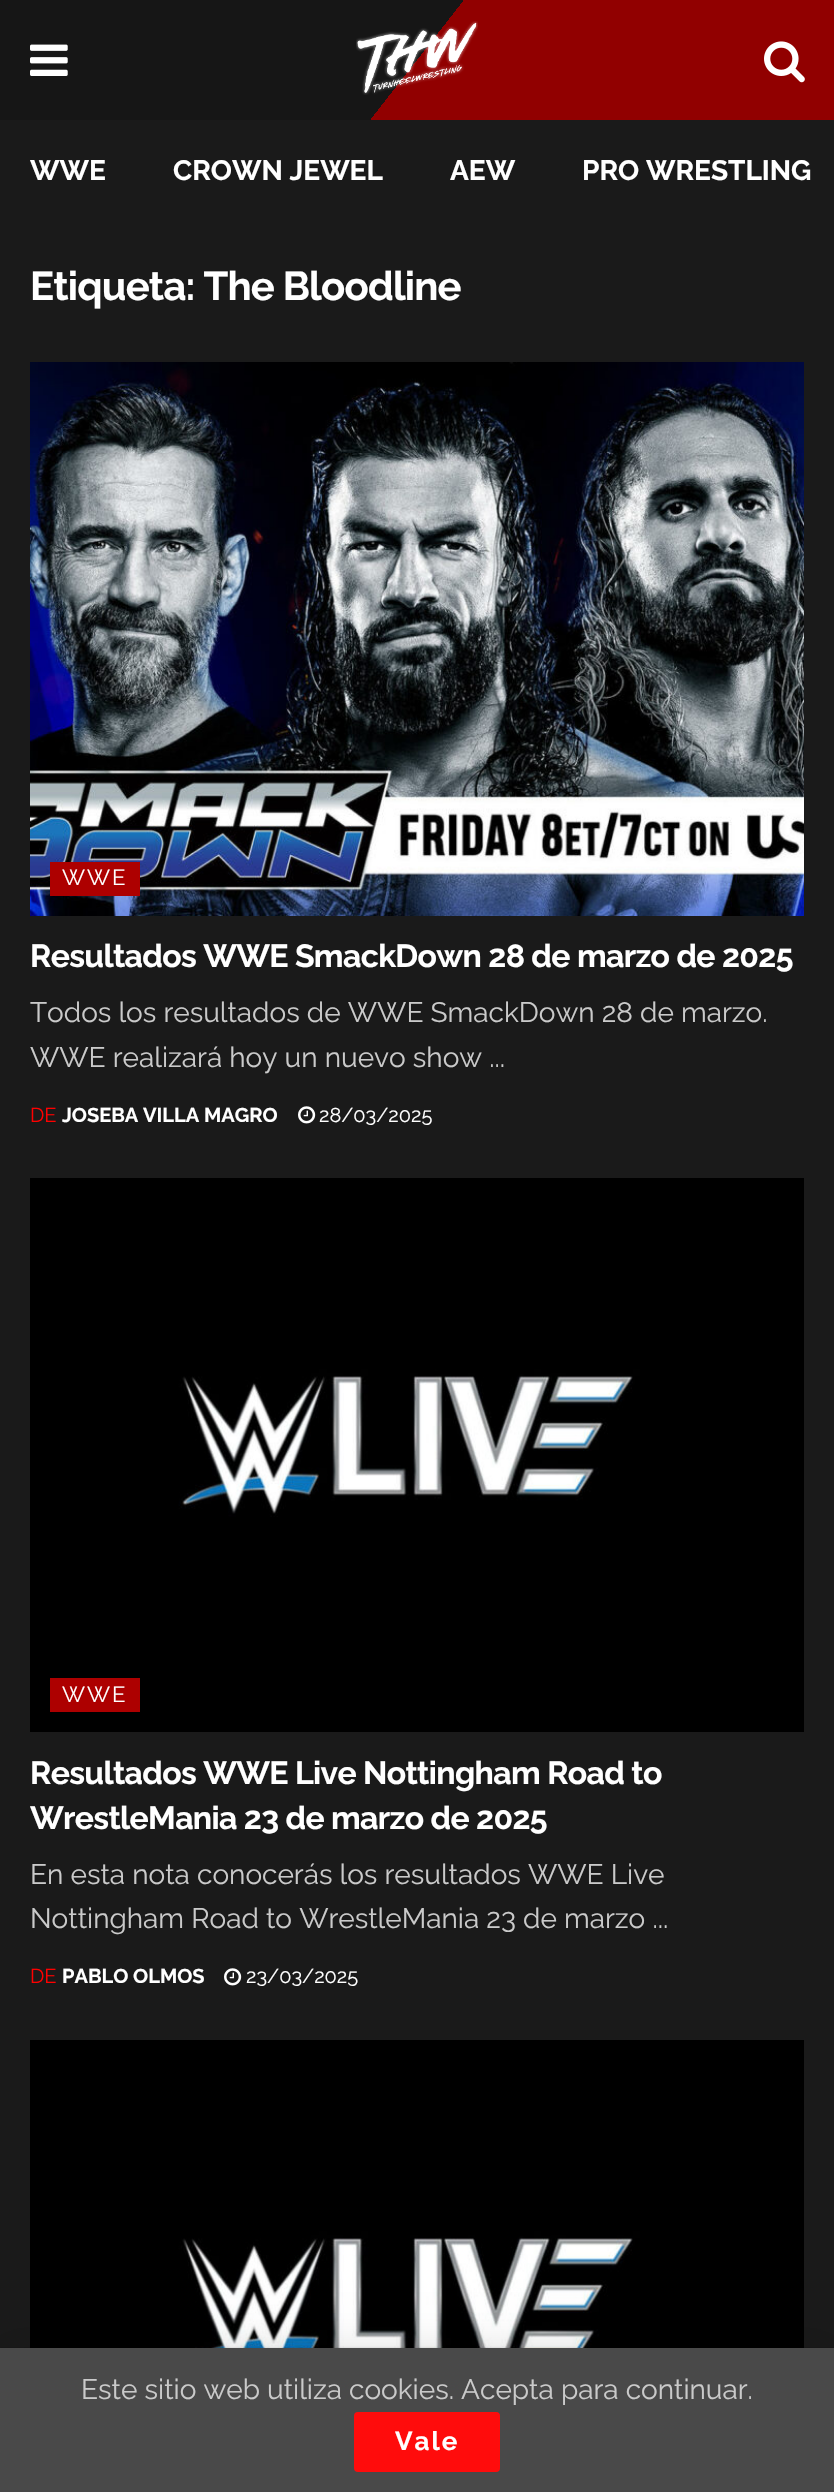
void draw(SkCanvas* c) {
SkPaint p;
p.setAntiAlias(true);
auto F=[&](const char* family, int weight, float size, bool italic = false){SkFontStyle style(weight, SkFontStyle::kNormal_Width,italic ? SkFontStyle::kItalic_Slant : SkFontStyle::kUpright_Slant);SkFont result(fontMgr->matchFamilyStyle(family, style), size);result.setSubpixel(true);return result;};
auto T=[&](const char* s, float x, float y, const SkFont& font){c->drawString(s, x, y, font, p);};
auto L=[&](const char* s, float x, float y, const SkFont& font, const SkPaint& ink, float letter, float word){std::vector<SkGlyphID> glyphs(font.countText(s, strlen(s), SkTextEncoding::kUTF8));std::vector<float> xs(glyphs.size());font.textToGlyphs(s, strlen(s), SkTextEncoding::kUTF8, glyphs);font.getXPos(glyphs, xs, x);float extra = 0;for (size_t i = 0; i < glyphs.size(); i++) {xs[i] += extra;extra += letter + word * (glyphs[i] == font.unicharToGlyph(' '));}c->drawTextBlob(SkTextBlob::MakeFromPosHGlyphs(glyphs, xs, y, font), 0, 0, ink);};
auto R=[&](float x, float y, float w, float h){c->drawRect(SkRect::MakeXYWH(x, y, w, h), p);};
auto Q=[&](float x, float y, float w, float h, float radius){c->drawRoundRect(SkRect::MakeXYWH(x, y, w, h), radius, radius, p);};
auto I=[&](const char* path, float x, float y, float w, float h){auto image = SkImages::DeferredFromEncodedData(SkData::MakeFromFileName(path));c->drawImageRect(image, SkRect::MakeXYWH(x, y, w, h), SkSamplingOptions());};
c->clear(0xff1a1a1a);
{
const SkColor colors[] = {0xff161616,0xff910000};
const float stops[] = {.5,.5};
const SkPoint ends[] = {{129,-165}, {705,285}};
p.setShader(SkGradientShader::MakeLinear(ends, colors, stops, 2, SkTileMode::kClamp));
p.setAlpha(255);
}
R(0,0,834,120);
I("1.png",30,44,38,32);
I("2.png",356,21,122,74);
I("3.png",764,41,41,42);
auto f1 = F("Raleway",700,28);
p.setShader(nullptr);
p.setColor(0xffffffff);
T("WWE",30,180,f1);
T("CROWN JEWEL",173,180,f1);
T("AEW",450,180,f1);
T("PRO WRESTLING",582,180,f1);
auto f2 = F("Raleway",700,40);
L("Etiqueta: The Bloodline",30,300,f2,p,-.8,0);
I("4.png",30,362,774,554);
p.setColor(0xffad0000);
R(50,862,90,34);
auto f3 = F("Raleway",400,22);
p.setColor(0xffffffff);
L("WWE",62,885,f3,p,2,0);
auto f4 = F("Raleway",700,32);
L("Resultados WWE SmackDown 28 de marzo de 2025",30,967,f4,p,-.65,0);
auto f5 = F("Raleway",400,28);
p.setColor(0xffcacaca);
T("Todos los resultados de WWE SmackDown 28 de marzo.",30,1022,f5);
T("WWE realizará hoy un nuevo show ...",30,1067,f5);
auto f6 = F("Raleway",400,20);
p.setColor(0xffff0000);
T("DE",30,1122,f6);
auto f7 = F("Raleway",700,20);
p.setColor(0xffffffff);
T("JOSEBA VILLA MAGRO",62,1122,f7);
I("5.png",298,1106,18,18);
T("28/03/2025",319,1122,f6);
I("6.png",30,1178,774,554);
p.setColor(0xffad0000);
R(50,1678,90,34);
p.setColor(0xffffffff);
L("WWE",62,1702,f3,p,2,0);
L("Resultados WWE Live Nottingham Road to",30,1784,f4,p,-.65,0);
L("WrestleMania 23 de marzo de 2025",30,1829,f4,p,-.65,0);
p.setColor(0xffcacaca);
T("En esta nota conocerás los resultados WWE Live",30,1884,f5);
T("Nottingham Road to WrestleMania 23 de marzo ...",30,1928,f5);
p.setColor(0xffff0000);
T("DE",30,1983,f6);
p.setColor(0xffffffff);
T("PABLO OLMOS",62,1983,f7);
I("5.png",224,1968,18,18);
T("23/03/2025",246,1983,f6);
I("7.png",30,2040,774,308);
p.setColor(0x26000000);
p.setMaskFilter(SkMaskFilter::MakeBlur(kNormal_SkBlurStyle, 20));
c->drawRect(SkRect::MakeXYWH(0,2352,834,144),p);
p.setMaskFilter(nullptr);
p.setColor(0x33000000);
p.setMaskFilter(SkMaskFilter::MakeBlur(kNormal_SkBlurStyle, 1));
c->drawRect(SkRect::MakeXYWH(0,2348,834,144),p);
p.setMaskFilter(nullptr);
p.setColor(0xff494949);
R(0,2348,834,144);
p.setColor(0xffcacaca);
T("Este sitio web utiliza cookies. Acepta para continuar.",81,2399,f5);
p.setColor(0xffff0c0c);
Q(354,2412,146,60,4);
auto f8 = F("Raleway",700,26);
p.setColor(0xffffffff);
L("Vale",395,2450,f8,p,2,0);
}
